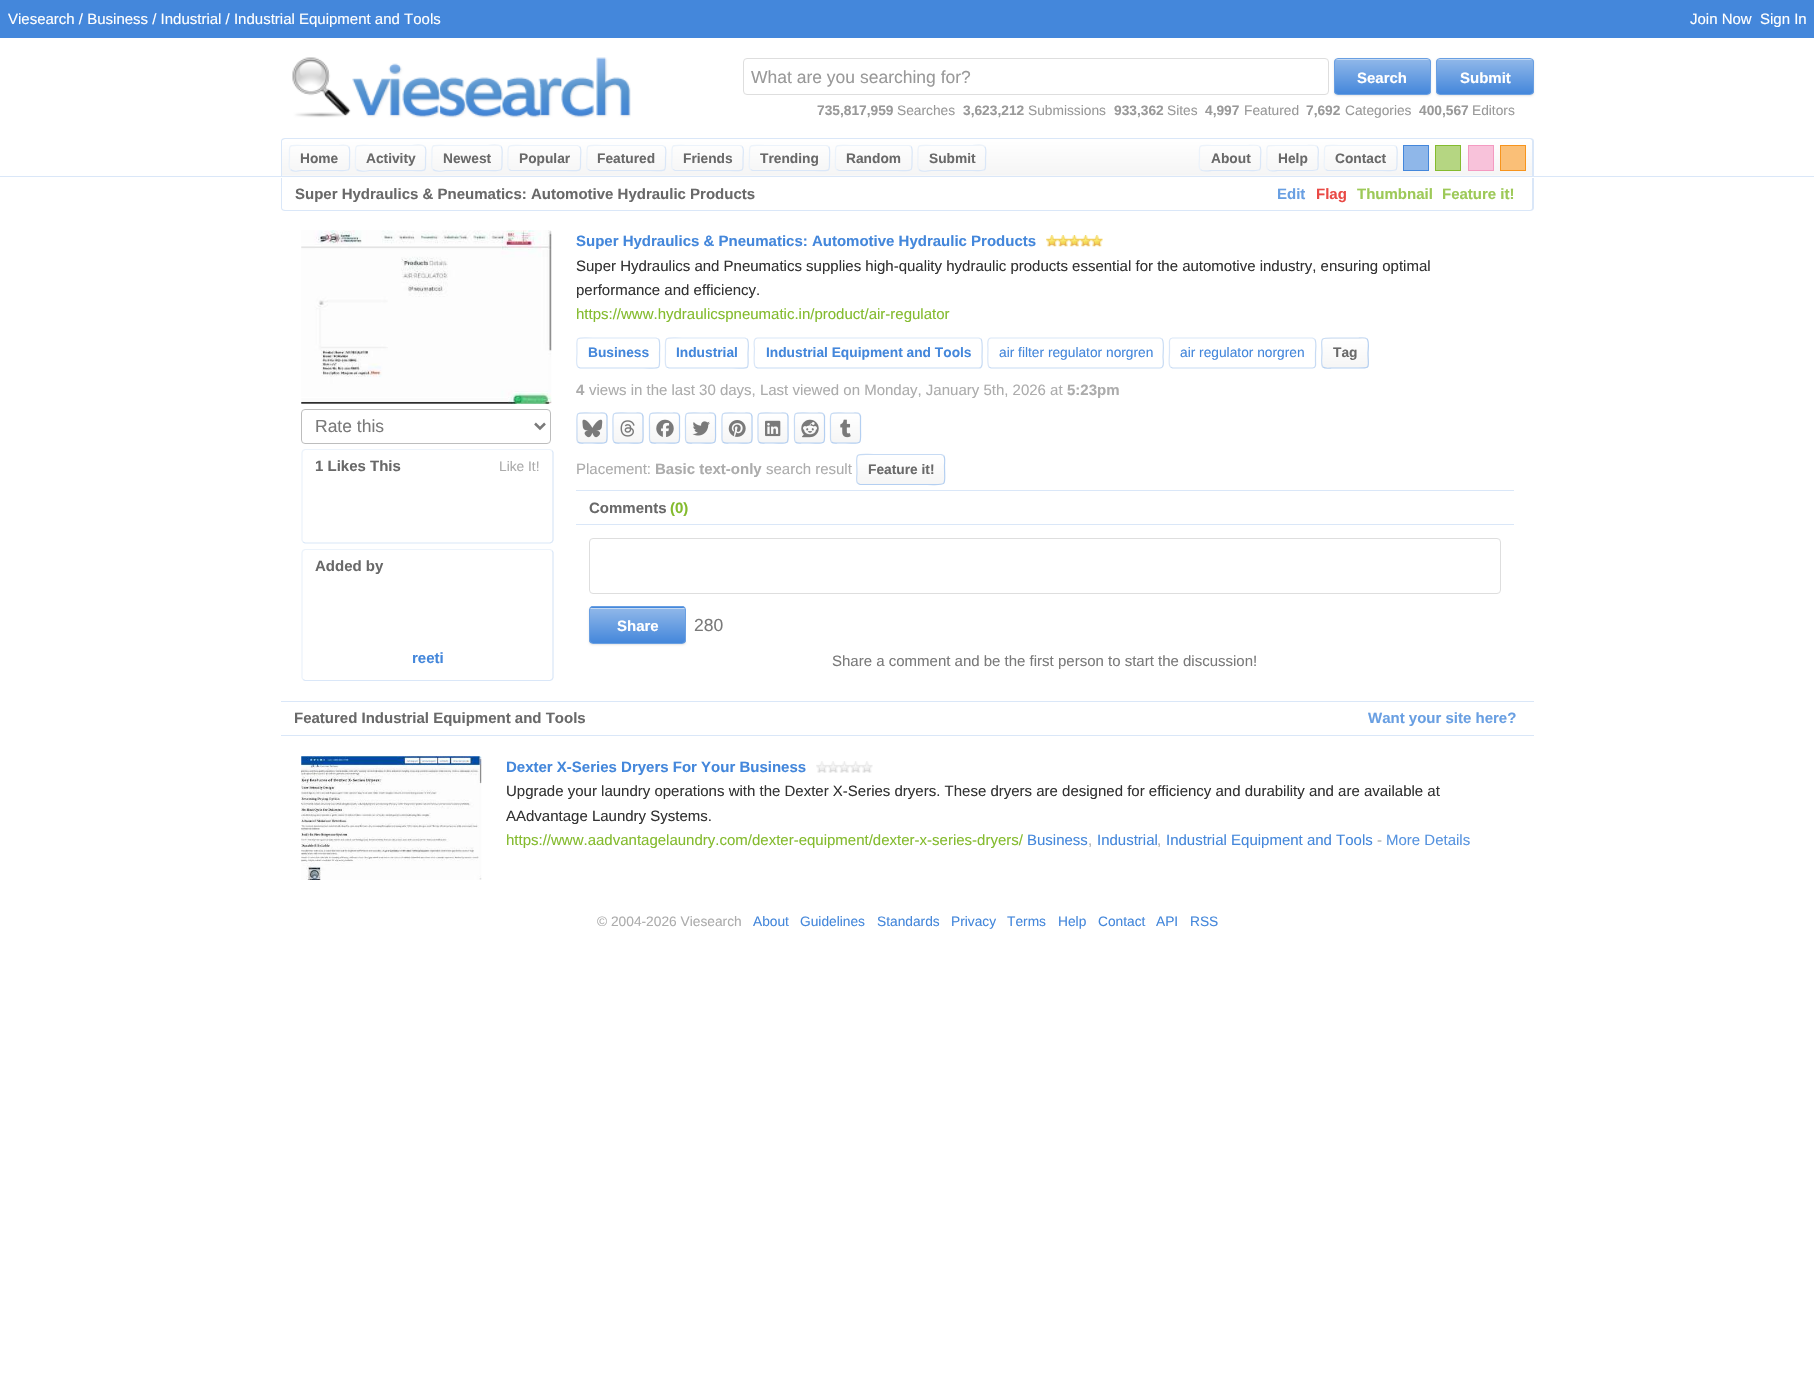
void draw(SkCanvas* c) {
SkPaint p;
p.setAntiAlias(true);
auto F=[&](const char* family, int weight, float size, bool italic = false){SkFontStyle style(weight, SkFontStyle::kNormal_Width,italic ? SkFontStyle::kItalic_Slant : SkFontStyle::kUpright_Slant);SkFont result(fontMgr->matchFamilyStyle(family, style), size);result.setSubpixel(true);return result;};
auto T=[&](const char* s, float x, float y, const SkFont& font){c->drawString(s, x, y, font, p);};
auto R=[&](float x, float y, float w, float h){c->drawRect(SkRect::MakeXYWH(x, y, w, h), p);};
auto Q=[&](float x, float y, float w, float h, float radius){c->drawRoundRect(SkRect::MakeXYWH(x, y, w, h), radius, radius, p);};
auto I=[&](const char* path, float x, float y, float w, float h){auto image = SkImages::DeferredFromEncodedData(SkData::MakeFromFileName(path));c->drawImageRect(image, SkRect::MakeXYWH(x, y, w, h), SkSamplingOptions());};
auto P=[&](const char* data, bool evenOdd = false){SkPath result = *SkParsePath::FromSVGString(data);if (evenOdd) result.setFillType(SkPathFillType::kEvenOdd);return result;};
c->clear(0xffffffff);
p.setColor(0xff4487db);
R(0,0,1814,38);
auto f1 = F("Liberation Sans",400,15);
p.setColor(0xffffffff);
T("Viesearch / Business / Industrial / Industrial Equipment and Tools",8,24,f1);
T("Join Now",1690,24,f1);
T("Sign In",1760,24,f1);
I("1.png",292,57,339,61);
p.setStroke(true);
p.setStrokeWidth(1);
p.setColor(0xffdedede);
c->drawRoundRect(SkRect::MakeXYWH(743.5,58.5,585,36),3.5,3.5,p);
auto f2 = F("Liberation Sans",400,17.5);
p.setStroke(false);
p.setColor(0xff999999);
T("What are you searching for?",751,83,f2);
p.setColor(0x1a000000);
p.setMaskFilter(SkMaskFilter::MakeBlur(kNormal_SkBlurStyle, 1));
c->drawRoundRect(SkRect::MakeXYWH(1334,59,97,37),4,4,p);
p.setMaskFilter(nullptr);
c->save();
c->clipPath(P("M1338 58h89c2 0 4 2 4 4v29c0 2-2 4-4 4h-89c-2 0-4-2-4-4v-29c0-2 2-4 4-4z"),true);
{
const SkColor colors[] = {0xffecf3fb,0xff8fb7e9,0xff4487db};
const float stops[] = {.01,.02,1};
const SkPoint ends[] = {{1430,59}, {1430,94}};
p.setShader(SkGradientShader::MakeLinear(ends, colors, stops, 3, SkTileMode::kClamp));
p.setAlpha(255);
}
R(1334,59,97,35);
c->restore();
p.setStroke(true);
p.setShader(nullptr);
p.setColor(0xff699fe2);
c->drawRoundRect(SkRect::MakeXYWH(1334.5,58.5,96,36),3.5,3.5,p);
auto f3 = F("Liberation Sans",700,15);
p.setStroke(false);
p.setColor(0xffffffff);
T("Search",1357,83,f3);
p.setColor(0x1a000000);
p.setMaskFilter(SkMaskFilter::MakeBlur(kNormal_SkBlurStyle, 1));
c->drawRoundRect(SkRect::MakeXYWH(1436,59,98,37),4,4,p);
p.setMaskFilter(nullptr);
c->save();
c->clipPath(P("M1440 58h90c2 0 4 2 4 4v29c0 2-2 4-4 4h-90c-2 0-4-2-4-4v-29c0-2 2-4 4-4z"),true);
{
const SkColor colors[] = {0xffecf3fb,0xff8fb7e9,0xff4487db};
const float stops[] = {.01,.02,1};
const SkPoint ends[] = {{1533,59}, {1533,94}};
p.setShader(SkGradientShader::MakeLinear(ends, colors, stops, 3, SkTileMode::kClamp));
p.setAlpha(255);
}
R(1436,59,98,35);
c->restore();
p.setStroke(true);
p.setShader(nullptr);
p.setColor(0xff699fe2);
c->drawRoundRect(SkRect::MakeXYWH(1436.5,58.5,97,36),3.5,3.5,p);
p.setStroke(false);
p.setColor(0xffffffff);
T("Submit",1460,83,f3);
auto f4 = F("Liberation Sans",700,13.75);
p.setColor(0xff999999);
T("735,817,959",817,115,f4);
auto f5 = F("Liberation Sans",400,13.75);
T("Searches",897,115,f5);
T("3,623,212",963,115,f4);
T("Submissions",1028,115,f5);
T("933,362",1114,115,f4);
T("Sites",1167,115,f5);
T("4,997",1205,115,f4);
T("Featured",1244,115,f5);
T("7,692",1306,115,f4);
T("Categories",1345,115,f5);
T("400,567",1419,115,f4);
T("Editors",1472,115,f5);
p.setColor(0xffdae7f8);
R(0,176,1814,1);
c->save();
c->clipPath(P("M285 138h1245c2 0 4 2 4 4v34h-1253v-34c0-2 2-4 4-4z"),true);
{
const SkColor colors[] = {0xffffffff,0xffffffff,0xfff5f5f5,0xffffffff};
const float stops[] = {.01,.02,.98,1};
const SkPoint ends[] = {{1533,139}, {1533,176}};
p.setShader(SkGradientShader::MakeLinear(ends, colors, stops, 4, SkTileMode::kClamp));
p.setAlpha(255);
}
R(281,139,1253,37);
c->restore();
p.setShader(nullptr);
p.setColor(0xffdae7f8);
c->drawPath(P("M285 138h1245c2 0 4 1 4 3v35h-1253v-35c0-2 2-3 4-3zm0 1h1245c1 0 2 1 2 2v35h-1250v-35c0-1 2-2 3-2z",true),p);
c->save();
c->clipPath(P("M293 145h53c2 0 4 2 4 4v18c0 2-2 4-4 4h-53c-2 0-4-2-4-4v-18c0-2 2-4 4-4z"),true);
{
const SkColor colors[] = {0xffffffff,0xffffffff,0xfff5f5f5};
const float stops[] = {.01,.02,1};
const SkPoint ends[] = {{349,123}, {349,146}};
p.setShader(SkGradientShader::MakeLinear(ends, colors, stops, 3, SkTileMode::kClamp));
p.setAlpha(255);
}
R(289,145,61,1);
{
const SkColor colors[] = {0xffffffff,0xffffffff,0xfff5f5f5};
const float stops[] = {.01,.02,1};
const SkPoint ends[] = {{349,170}, {349,194}};
p.setShader(SkGradientShader::MakeLinear(ends, colors, stops, 3, SkTileMode::kClamp));
p.setAlpha(255);
}
R(289,170,61,1);
c->restore();
p.setStroke(true);
p.setStrokeWidth(1.2);
p.setShader(nullptr);
p.setColor(0xffdae7f8);
c->drawPath(P("M348.5 146.5c2 2 1 9 1 11.5c0 14 2 12.5-12 12.5h-36c-4 0-8.5 2-11-1"),p);
p.setColor(0xffecf3fb);
c->drawPath(P("M290.5 169.5c-2.5-2-1-9-1-11.5c0-14-2-12.5 12-12.5h36c3.5 0 8.5-1.5 11 1"),p);
p.setStroke(false);
p.setColor(0xff696969);
T("Home",300,163,f4);
c->save();
c->clipPath(P("M359 145h63c2 0 4 2 4 4v18c0 2-2 4-4 4h-63c-2 0-4-2-4-4v-18c0-2 2-4 4-4z"),true);
{
const SkColor colors[] = {0xffffffff,0xffffffff,0xfff5f5f5};
const float stops[] = {.01,.02,1};
const SkPoint ends[] = {{425,123}, {425,146}};
p.setShader(SkGradientShader::MakeLinear(ends, colors, stops, 3, SkTileMode::kClamp));
p.setAlpha(255);
}
R(355,145,71,1);
{
const SkColor colors[] = {0xffffffff,0xffffffff,0xfff5f5f5};
const float stops[] = {.01,.02,1};
const SkPoint ends[] = {{425,170}, {425,194}};
p.setShader(SkGradientShader::MakeLinear(ends, colors, stops, 3, SkTileMode::kClamp));
p.setAlpha(255);
}
R(355,170,71,1);
c->restore();
p.setStroke(true);
p.setShader(nullptr);
p.setColor(0xffdae7f8);
c->drawPath(P("M424.5 146.5c2.5 2 1 9 1 11.5c0 15 2 12.5-13.5 12.5h-42.5c0 0-10.5 1.5-13-1"),p);
p.setColor(0xffecf3fb);
c->drawPath(P("M356.5 169.5c-2-2-1-9-1-11.5c0-14.5-1.5-12.5 14-12.5h42.5c0 0 10-1.5 12.5 1"),p);
p.setStroke(false);
p.setColor(0xff696969);
T("Activity",366,163,f4);
c->save();
c->clipPath(P("M435 145h64c2 0 4 2 4 4v18c0 2-2 4-4 4h-64c-2 0-4-2-4-4v-18c0-2 2-4 4-4z"),true);
{
const SkColor colors[] = {0xffffffff,0xffffffff,0xfff5f5f5};
const float stops[] = {.01,.02,1};
const SkPoint ends[] = {{501,123}, {501,146}};
p.setShader(SkGradientShader::MakeLinear(ends, colors, stops, 3, SkTileMode::kClamp));
p.setAlpha(255);
}
R(431,145,72,1);
{
const SkColor colors[] = {0xffffffff,0xffffffff,0xfff5f5f5};
const float stops[] = {.01,.02,1};
const SkPoint ends[] = {{501,170}, {501,194}};
p.setShader(SkGradientShader::MakeLinear(ends, colors, stops, 3, SkTileMode::kClamp));
p.setAlpha(255);
}
R(431,170,72,1);
c->restore();
p.setStroke(true);
p.setShader(nullptr);
p.setColor(0xffdae7f8);
c->drawPath(P("M501 146.5c2 2 1 9 1 11.5c0 15 1.5 12.5-14 12.5h-42.5c0 0-10 1.5-12.5-1"),p);
p.setColor(0xffecf3fb);
c->drawPath(P("M433 169.5c-2.5-2-1-9-1-11.5c0-14.5-2-12.5 13.5-12.5h42.5c0 0 10.5-1.5 13 1"),p);
p.setStroke(false);
p.setColor(0xff696969);
T("Newest",443,163,f4);
p.setStroke(true);
p.setColor(0xffdae7f8);
c->drawPath(P("M579.5 146.5c2.5 2 1 9 1 11.5c0 15 2 12.5-14 12.5h-55.5l-2-1"),p);
p.setColor(0xffecf3fb);
c->drawPath(P("M509 169.5c-2-2-1-9-1-11.5c0-14.5-1.5-12.5 14.5-12.5h55l2 1"),p);
p.setStroke(false);
p.setColor(0xff696969);
T("Popular",519,163,f4);
c->save();
c->clipPath(P("M590 145h72c2 0 4 2 4 4v18c0 2-2 4-4 4h-72c-2 0-4-2-4-4v-18c0-2 2-4 4-4z"),true);
{
const SkColor colors[] = {0xffffffff,0xffffffff,0xfff5f5f5};
const float stops[] = {.01,.02,1};
const SkPoint ends[] = {{665,170}, {665,194}};
p.setShader(SkGradientShader::MakeLinear(ends, colors, stops, 3, SkTileMode::kClamp));
p.setAlpha(255);
}
R(586,170,80,1);
c->restore();
p.setStroke(true);
p.setShader(nullptr);
p.setColor(0xffdae7f8);
c->drawPath(P("M664.5 146.5c2.5 2 1 9 1 11.5c0 15.5 1.5 12.5-15 12.5h-60.5l-2-1"),p);
p.setColor(0xffecf3fb);
c->drawPath(P("M588 169.5c-2.5-2-1-9-1-11.5c0-15-1.5-12.5 15-12.5h60.5l2 1"),p);
p.setStroke(false);
p.setColor(0xff696969);
T("Featured",597,163,f4);
c->save();
c->clipPath(P("M675 145h65c2 0 4 2 4 4v18c0 2-2 4-4 4h-65c-2 0-4-2-4-4v-18c0-2 2-4 4-4z"),true);
{
const SkColor colors[] = {0xffffffff,0xffffffff,0xfff5f5f5};
const float stops[] = {.01,.02,1};
const SkPoint ends[] = {{743,123}, {743,146}};
p.setShader(SkGradientShader::MakeLinear(ends, colors, stops, 3, SkTileMode::kClamp));
p.setAlpha(255);
}
R(671,145,73,1);
{
const SkColor colors[] = {0xffffffff,0xffffffff,0xfff5f5f5};
const float stops[] = {.01,.02,1};
const SkPoint ends[] = {{743,170}, {743,194}};
p.setShader(SkGradientShader::MakeLinear(ends, colors, stops, 3, SkTileMode::kClamp));
p.setAlpha(255);
}
R(671,170,73,1);
c->restore();
p.setStroke(true);
p.setShader(nullptr);
p.setColor(0xffdae7f8);
c->drawPath(P("M742 146.5c2.5 2 1 9 1 11.5c0 15 2 12.5-14 12.5h-54l-2-1"),p);
p.setColor(0xffecf3fb);
c->drawPath(P("M673 169.5c-2.5-2-1-9-1-11.5c0-14.5-2-12.5 14-12.5h54l2 1"),p);
p.setStroke(false);
p.setColor(0xff696969);
T("Friends",683,163,f4);
c->save();
c->clipPath(P("M753 145h73c2 0 4 2 4 4v18c0 2-2 4-4 4h-73c-2 0-4-2-4-4v-18c0-2 2-4 4-4z"),true);
{
const SkColor colors[] = {0xffffffff,0xffffffff,0xfff5f5f5};
const float stops[] = {.01,.02,1};
const SkPoint ends[] = {{829,123}, {829,146}};
p.setShader(SkGradientShader::MakeLinear(ends, colors, stops, 3, SkTileMode::kClamp));
p.setAlpha(255);
}
R(749,145,81,1);
c->restore();
p.setStroke(true);
p.setShader(nullptr);
p.setColor(0xffdae7f8);
c->drawPath(P("M828.5 146.5c2 2 1 9 1 11.5c0 15.5 1.5 12.5-15.5 12.5h-61.5l-2-1"),p);
p.setColor(0xffecf3fb);
c->drawPath(P("M750.5 169.5c-2.5-2-1-9-1-11.5c0-15-1.5-12.5 15.5-12.5h61l2.5 1"),p);
p.setStroke(false);
p.setColor(0xff696969);
T("Trending",760,163,f4);
c->save();
c->clipPath(P("M839 145h70c2 0 4 2 4 4v18c0 2-2 4-4 4h-70c-2 0-4-2-4-4v-18c0-2 2-4 4-4z"),true);
{
const SkColor colors[] = {0xffffffff,0xffffffff,0xfff5f5f5};
const float stops[] = {.01,.02,1};
const SkPoint ends[] = {{911,123}, {911,146}};
p.setShader(SkGradientShader::MakeLinear(ends, colors, stops, 3, SkTileMode::kClamp));
p.setAlpha(255);
}
R(835,145,78,1);
{
const SkColor colors[] = {0xffffffff,0xffffffff,0xfff5f5f5};
const float stops[] = {.01,.02,1};
const SkPoint ends[] = {{911,170}, {911,194}};
p.setShader(SkGradientShader::MakeLinear(ends, colors, stops, 3, SkTileMode::kClamp));
p.setAlpha(255);
}
R(835,170,78,1);
c->restore();
p.setStroke(true);
p.setShader(nullptr);
p.setColor(0xffdae7f8);
c->drawPath(P("M911 146.5c2 2 1 9 1 11.5c0 15 1.5 12.5-15 12.5h-58l-2.5-1"),p);
p.setColor(0xffecf3fb);
c->drawPath(P("M836.5 169.5c-2-2-1-9-1-11.5c0-15-1.5-12.5 15-12.5h58.5l2 1"),p);
p.setStroke(false);
p.setColor(0xff696969);
T("Random",846,163,f4);
c->save();
c->clipPath(P("M922 145h60c2 0 4 2 4 4v18c0 2-2 4-4 4h-60c-2 0-4-2-4-4v-18c0-2 2-4 4-4z"),true);
{
const SkColor colors[] = {0xffffffff,0xffffffff,0xfff5f5f5};
const float stops[] = {.01,.02,1};
const SkPoint ends[] = {{985,123}, {985,146}};
p.setShader(SkGradientShader::MakeLinear(ends, colors, stops, 3, SkTileMode::kClamp));
p.setAlpha(255);
}
R(918,145,68,1);
{
const SkColor colors[] = {0xffffffff,0xffffffff,0xfff5f5f5};
const float stops[] = {.01,.02,1};
const SkPoint ends[] = {{985,170}, {985,194}};
p.setShader(SkGradientShader::MakeLinear(ends, colors, stops, 3, SkTileMode::kClamp));
p.setAlpha(255);
}
R(918,170,68,1);
c->restore();
p.setStroke(true);
p.setShader(nullptr);
p.setColor(0xffdae7f8);
c->drawPath(P("M984.5 146.5c2.5 2 1 9 1 11.5c0 14.5 2 12.5-13 12.5h-41c-4 0-9 2-12-.5l-.5-.5"),p);
p.setColor(0xffecf3fb);
c->drawPath(P("M919 169.5c-2-2-1-9-1-11.5c0-14.5-2-12.5 13.5-12.5h41c4 0 9-2 12 1"),p);
p.setStroke(false);
p.setColor(0xff696969);
T("Submit",929,163,f4);
c->save();
c->clipPath(P("M1203 145h54c2 0 4 2 4 4v18c0 2-2 4-4 4h-54c-2 0-4-2-4-4v-18c0-2 2-4 4-4z"),true);
{
const SkColor colors[] = {0xffffffff,0xffffffff,0xfff5f5f5};
const float stops[] = {.01,.02,1};
const SkPoint ends[] = {{1260,170}, {1260,194}};
p.setShader(SkGradientShader::MakeLinear(ends, colors, stops, 3, SkTileMode::kClamp));
p.setAlpha(255);
}
R(1199,170,62,1);
c->restore();
p.setStroke(true);
p.setShader(nullptr);
p.setColor(0xffdae7f8);
c->drawPath(P("M1259.5 146.5c2.5 2 1 9 1 11.5c0 14 2 12.5-12 12.5h-37c-1 0-9 1.5-11-1"),p);
p.setColor(0xffecf3fb);
c->drawPath(P("M1200.5 169.5c-2.5-2-1-9-1-11.5c0-14-2-12.5 12-12.5h37c1 0 9-1 11 1"),p);
p.setStroke(false);
p.setColor(0xff696969);
T("About",1211,163,f4);
c->save();
c->clipPath(P("M1270 145h45c2 0 4 2 4 4v18c0 2-2 4-4 4h-45c-2 0-4-2-4-4v-18c0-2 2-4 4-4z"),true);
{
const SkColor colors[] = {0xffffffff,0xffffffff,0xfff5f5f5};
const float stops[] = {.01,.02,1};
const SkPoint ends[] = {{1318,123}, {1318,146}};
p.setShader(SkGradientShader::MakeLinear(ends, colors, stops, 3, SkTileMode::kClamp));
p.setAlpha(255);
}
R(1266,145,53,1);
{
const SkColor colors[] = {0xffffffff,0xffffffff,0xfff5f5f5};
const float stops[] = {.01,.02,1};
const SkPoint ends[] = {{1318,170}, {1318,194}};
p.setShader(SkGradientShader::MakeLinear(ends, colors, stops, 3, SkTileMode::kClamp));
p.setAlpha(255);
}
R(1266,170,53,1);
c->restore();
p.setStroke(true);
p.setShader(nullptr);
p.setColor(0xffdae7f8);
c->drawPath(P("M1317 146.5c2.5 2 1 9 1 11.5c0 13 2.5 12.5-10.5 12.5h-30c-1 0-7.5 1.5-9.5-1"),p);
p.setColor(0xffecf3fb);
c->drawPath(P("M1268 169.5c-2.5-2-1-9-1-11.5c0-13-2.5-12.5 10.5-12.5h30c1 0 7.5-1 9.5 1"),p);
p.setStroke(false);
p.setColor(0xff696969);
T("Help",1278,163,f4);
c->save();
c->clipPath(P("M1328 145h66c2 0 4 2 4 4v18c0 2-2 4-4 4h-66c-2 0-4-2-4-4v-18c0-2 2-4 4-4z"),true);
{
const SkColor colors[] = {0xffffffff,0xffffffff,0xfff5f5f5};
const float stops[] = {.01,.02,1};
const SkPoint ends[] = {{1396,123}, {1396,146}};
p.setShader(SkGradientShader::MakeLinear(ends, colors, stops, 3, SkTileMode::kClamp));
p.setAlpha(255);
}
R(1324,145,74,1);
c->restore();
p.setStroke(true);
p.setShader(nullptr);
p.setColor(0xffdae7f8);
c->drawPath(P("M1396 146.5c2 2 1 9 1 11.5c0 15 1.5 12.5-14.5 12.5h-55l-2-1"),p);
p.setColor(0xffecf3fb);
c->drawPath(P("M1325.5 169.5c-2.5-2-1-9-1-11.5c0-14.5-2-12.5 14-12.5h55.5l2 1"),p);
p.setStroke(false);
p.setColor(0xff696969);
T("Contact",1335,163,f4);
p.setColor(0xff8fb7e9);
c->drawRect(SkRect::MakeXYWH(1403.5,145.5,25,25),p);
p.setStroke(true);
p.setStrokeWidth(1);
p.setColor(0xff4487db);
c->drawRect(SkRect::MakeXYWH(1403.5,145.5,25,25),p);
p.setStroke(false);
p.setColor(0xffb5d682);
c->drawRect(SkRect::MakeXYWH(1435.5,145.5,25,25),p);
p.setStroke(true);
p.setColor(0xff84bb2e);
c->drawRect(SkRect::MakeXYWH(1435.5,145.5,25,25),p);
p.setStroke(false);
p.setColor(0xfff8c2da);
c->drawRect(SkRect::MakeXYWH(1468.5,145.5,25,25),p);
p.setStroke(true);
p.setColor(0xfff49ac1);
c->drawRect(SkRect::MakeXYWH(1468.5,145.5,25,25),p);
p.setStroke(false);
p.setColor(0xfffabf77);
c->drawRect(SkRect::MakeXYWH(1500.5,145.5,25,25),p);
p.setStroke(true);
p.setColor(0xfff7941d);
c->drawRect(SkRect::MakeXYWH(1500.5,145.5,25,25),p);
p.setStroke(false);
p.setColor(0xffdae7f8);
c->drawPath(P("M281 178h1253v30c0 2-2 3-4 3h-1245c-2 0-4-1-4-3zm1 0h1250v30c0 1-1 2-2 2h-1245c-1 0-3-1-3-2z",true),p);
p.setColor(0xff696969);
T("Super Hydraulics & Pneumatics: Automotive Hydraulic Products",295,199,f3);
p.setColor(0xff699fe2);
T("Edit",1277,199,f3);
p.setColor(0xffe94945);
T("Flag",1316,199,f3);
p.setColor(0xff9dc958);
T("Thumbnail",1357,199,f3);
T("Feature it!",1442,199,f3);
I("2.png",301,230,251,174);
p.setStroke(true);
p.setColor(0xffbdbdbd);
c->drawRoundRect(SkRect::MakeXYWH(301.5,409.5,249,34),3.5,3.5,p);
p.setStrokeWidth(2.5);
p.setColor(0xff7a7a7a);
c->drawPath(P("M535 423.5l5 5l5-5"),p);
p.setStroke(false);
T("Rate this",315,432,f2);
p.setStroke(true);
p.setStrokeWidth(1.2);
p.setColor(0xffdae7f8);
c->drawPath(P("M552 450.5l1 2v87.5l-1 2l-2 1h-245l-2-1"),p);
p.setColor(0xffecf3fb);
c->drawPath(P("M303 542l-1-2v-87.5l1-2l2-1h245l2 1"),p);
p.setStroke(false);
p.setColor(0xff696969);
T("1 Likes This",315,471,f3);
p.setColor(0xffacacac);
T("Like It!",499,471,f5);
p.setStroke(true);
p.setColor(0xffdae7f8);
c->drawPath(P("M552 550.5l1 2v125l-1 2l-2 1h-245l-2-1"),p);
p.setColor(0xffecf3fb);
c->drawPath(P("M303 679.5l-1-2v-125l1-2l2-1h245l2 1"),p);
p.setStroke(false);
p.setColor(0xff696969);
T("Added by",315,571,f3);
p.setColor(0xff4487db);
T("reeti",412,663,f3);
T("Super Hydraulics & Pneumatics: Automotive Hydraulic Products",576,246,f3);
I("3.png",1046,235,57,12);
p.setColor(0xff333333);
T("Super Hydraulics and Pneumatics supplies high-quality hydraulic products essential for the automotive industry, ensuring optimal",576,271,f1);
T("performance and efficiency.",576,295,f1);
p.setColor(0xff84bb2e);
T("https://www.hydraulicspneumatic.in/product/air-regulator",576,319,f1);
p.setStroke(true);
p.setColor(0xffc7dbf4);
c->drawPath(P("M658.5 339c2 2 1 11.5 1 14c0 18 2.5 15-16 15h-63.5l-2-1"),p);
p.setColor(0xffdae7f8);
c->drawPath(P("M578 367c-2.5-2-1-11-1-14c0-17.5-3-15 15.5-15h63.5l2.5 1"),p);
p.setStroke(false);
p.setColor(0xff4487db);
T("Business",588,357,f4);
p.setStroke(true);
p.setColor(0xffc7dbf4);
c->drawPath(P("M747 339c2.5 2 1 11.5 1 14c0 18 3 15-15.5 15h-63.5l-2.5-1"),p);
p.setColor(0xffdae7f8);
c->drawPath(P("M666.5 367c-2-2-1-11-1-14c0-17.5-2.5-15 16-15h63.5l2 1"),p);
p.setStroke(false);
p.setColor(0xff4487db);
T("Industrial",676,357,f4);
p.setStroke(true);
p.setColor(0xffc7dbf4);
c->drawPath(P("M981 339c2 2 1 15 1 18c0 2.5 1.5 11-3 11h-221.5l-2-1"),p);
p.setColor(0xffdae7f8);
c->drawPath(P("M755.5 367c-2.5-2-1-14.5-1-18c0-2-2-11 3-11h221.5l2 1"),p);
p.setStroke(false);
p.setColor(0xff4487db);
T("Industrial Equipment and Tools",766,357,f4);
p.setStroke(true);
p.setColor(0xffc7dbf4);
c->drawPath(P("M1162 339c2.5 2 1 15 1 18c0 2.5 2 11-3 11h-169l-2-1"),p);
p.setColor(0xffdae7f8);
c->drawPath(P("M989 367c-2-2-1-14.5-1-18c0-2-1.5-11 3-11h169l2 1"),p);
p.setStroke(false);
p.setColor(0xff4487db);
T("air filter regulator norgren",999,357,f5);
p.setStroke(true);
p.setColor(0xffc7dbf4);
c->drawPath(P("M1314.5 339c2.5 2 1 11.5 1 14v8c0 2.5 1 7-3 7h-140l-2-1"),p);
p.setColor(0xffdae7f8);
c->drawPath(P("M1170.5 367c-2.5-2-1-11-1-14v-8c0-2-1-7 3-7h140l2 1"),p);
p.setStroke(false);
p.setColor(0xff4487db);
T("air regulator norgren",1180,357,f5);
c->save();
c->clipPath(P("M1325 338h40c2 0 4 2 4 4v23c0 2-2 4-4 4h-40c-2 0-4-2-4-4v-23c0-2 2-4 4-4z"),true);
{
const SkColor colors[] = {0xffffffff,0xffffffff,0xfff5f5f5};
const float stops[] = {.01,.02,1};
const SkPoint ends[] = {{1368,310}, {1368,339}};
p.setShader(SkGradientShader::MakeLinear(ends, colors, stops, 3, SkTileMode::kClamp));
p.setAlpha(255);
}
R(1321,338,48,1);
{
const SkColor colors[] = {0xffffffff,0xffffffff,0xfff5f5f5};
const float stops[] = {.01,.02,1};
const SkPoint ends[] = {{1368,339}, {1368,368}};
p.setShader(SkGradientShader::MakeLinear(ends, colors, stops, 3, SkTileMode::kClamp));
p.setAlpha(255);
}
R(1321,339,48,29);
c->restore();
p.setStroke(true);
p.setShader(nullptr);
p.setColor(0xffb4cff1);
c->drawPath(P("M1367 339c2.5 2 1 11.5 1 14c0 14.5 3.5 15-9.5 15h-27c-1 0-6.5 1-8.5-1"),p);
p.setColor(0xffc7dbf4);
c->drawPath(P("M1323 367c-2.5-2-1-11-1-14c0-14-3.5-15 9.5-15h27c1 0 6.5-1 8.5 1"),p);
p.setStroke(false);
p.setColor(0xff696969);
T("Tag",1333,357,f4);
p.setColor(0xffacacac);
T("4",576,395,f3);
T("views in the last 30 days, Last viewed on Monday, January 5th, 2026 at",589,395,f1);
T("5:23pm",1067,395,f3);
c->save();
c->clipPath(P("M580 413h24c2 0 4 2 4 4v23c0 2-2 4-4 4h-24c-2 0-4-2-4-4v-23c0-2 2-4 4-4z"),true);
{
const SkColor colors[] = {0xffffffff,0xffffffff,0xfff5f5f5};
const float stops[] = {.01,.02,1};
const SkPoint ends[] = {{606,385}, {606,414}};
p.setShader(SkGradientShader::MakeLinear(ends, colors, stops, 3, SkTileMode::kClamp));
p.setAlpha(255);
}
R(576,413,32,1);
{
const SkColor colors[] = {0xffffffff,0xffffffff,0xfff5f5f5};
const float stops[] = {.01,.02,1};
const SkPoint ends[] = {{606,414}, {606,443}};
p.setShader(SkGradientShader::MakeLinear(ends, colors, stops, 3, SkTileMode::kClamp));
p.setAlpha(255);
}
R(576,414,32,29);
c->restore();
p.setStroke(true);
p.setShader(nullptr);
p.setColor(0xffb4cff1);
c->drawPath(P("M606 414c1.5 1.5 1 4.5 1 6v8c0 17.5 2.5 15-15 15h-8c-2 0-4.5 .5-6-1"),p);
p.setColor(0xffc7dbf4);
c->drawPath(P("M578 442c-1.5-1.5-1-4-1-6v-8c0-17.5-2.5-15 15-15h8c1.5 0 4.5-.5 6 1"),p);
I("4.png",582,419,21,19);
c->save();
c->clipPath(P("M617 413h23c2 0 4 2 4 4v23c0 2-2 4-4 4h-23c-2 0-4-2-4-4v-23c0-2 2-4 4-4z"),true);
p.setStroke(false);
{
const SkColor colors[] = {0xffffffff,0xffffffff,0xfff5f5f5};
const float stops[] = {.01,.02,1};
const SkPoint ends[] = {{643,385}, {643,414}};
p.setShader(SkGradientShader::MakeLinear(ends, colors, stops, 3, SkTileMode::kClamp));
p.setAlpha(255);
}
R(613,413,31,1);
{
const SkColor colors[] = {0xffffffff,0xffffffff,0xfff5f5f5};
const float stops[] = {.01,.02,1};
const SkPoint ends[] = {{643,414}, {643,443}};
p.setShader(SkGradientShader::MakeLinear(ends, colors, stops, 3, SkTileMode::kClamp));
p.setAlpha(255);
}
R(613,414,31,29);
c->restore();
p.setStroke(true);
p.setShader(nullptr);
p.setColor(0xffb4cff1);
c->drawPath(P("M642 414c1.5 1.5 1 4.5 1 6v8c0 17.5 2.5 15-15 15h-8c-1.5 0-4.5 .5-6-1"),p);
p.setColor(0xffc7dbf4);
c->drawPath(P("M614 442c-1.5-1.5-1-4-1-6v-8c0-17.5-2.5-15 15-15h8c2 0 4.5-.5 6 1"),p);
I("5.png",620,420,15,17);
c->save();
c->clipPath(P("M653 413h23c2 0 4 2 4 4v23c0 2-2 4-4 4h-23c-2 0-4-2-4-4v-23c0-2 2-4 4-4z"),true);
p.setStroke(false);
{
const SkColor colors[] = {0xffffffff,0xffffffff,0xfff5f5f5};
const float stops[] = {.01,.02,1};
const SkPoint ends[] = {{679,385}, {679,414}};
p.setShader(SkGradientShader::MakeLinear(ends, colors, stops, 3, SkTileMode::kClamp));
p.setAlpha(255);
}
R(649,413,31,1);
{
const SkColor colors[] = {0xffffffff,0xffffffff,0xfff5f5f5};
const float stops[] = {.01,.02,1};
const SkPoint ends[] = {{679,414}, {679,443}};
p.setShader(SkGradientShader::MakeLinear(ends, colors, stops, 3, SkTileMode::kClamp));
p.setAlpha(255);
}
R(649,414,31,29);
c->restore();
p.setStroke(true);
p.setShader(nullptr);
p.setColor(0xffb4cff1);
c->drawPath(P("M678.5 414c1.5 1.5 1 4.5 1 6v8c0 17.5 2.5 15-15 15h-8c-2 0-4.5 .5-6-1"),p);
p.setColor(0xffc7dbf4);
c->drawPath(P("M650.5 442c-1.5-1.5-1-4-1-6v-8c0-17.5-2.5-15 15-15h8c1.5 0 4.5-.5 6 1"),p);
I("6.png",656,419,18,18);
c->save();
c->clipPath(P("M689 413h23c2 0 4 2 4 4v23c0 2-2 4-4 4h-23c-2 0-4-2-4-4v-23c0-2 2-4 4-4z"),true);
p.setStroke(false);
{
const SkColor colors[] = {0xffffffff,0xffffffff,0xfff5f5f5};
const float stops[] = {.01,.02,1};
const SkPoint ends[] = {{715,385}, {715,414}};
p.setShader(SkGradientShader::MakeLinear(ends, colors, stops, 3, SkTileMode::kClamp));
p.setAlpha(255);
}
R(685,413,31,1);
{
const SkColor colors[] = {0xffffffff,0xffffffff,0xfff5f5f5};
const float stops[] = {.01,.02,1};
const SkPoint ends[] = {{715,414}, {715,443}};
p.setShader(SkGradientShader::MakeLinear(ends, colors, stops, 3, SkTileMode::kClamp));
p.setAlpha(255);
}
R(685,414,31,29);
c->restore();
p.setStroke(true);
p.setShader(nullptr);
p.setColor(0xffb4cff1);
c->drawPath(P("M714.5 414c1.5 1.5 1 4.5 1 6v8c0 17.5 2.5 15-15 15h-8c-1.5 0-4.5 .5-6-1"),p);
p.setColor(0xffc7dbf4);
c->drawPath(P("M686.5 442c-1.5-1.5-1-4-1-6v-8c0-17.5-2.5-15 15-15h8c2 0 4.5-.5 6 1"),p);
I("7.png",692,421,18,15);
c->save();
c->clipPath(P("M725 413h24c2 0 4 2 4 4v23c0 2-2 4-4 4h-24c-2 0-4-2-4-4v-23c0-2 2-4 4-4z"),true);
p.setStroke(false);
{
const SkColor colors[] = {0xffffffff,0xffffffff,0xfff5f5f5};
const float stops[] = {.01,.02,1};
const SkPoint ends[] = {{751,385}, {751,414}};
p.setShader(SkGradientShader::MakeLinear(ends, colors, stops, 3, SkTileMode::kClamp));
p.setAlpha(255);
}
R(721,413,32,1);
{
const SkColor colors[] = {0xffffffff,0xffffffff,0xfff5f5f5};
const float stops[] = {.01,.02,1};
const SkPoint ends[] = {{751,414}, {751,443}};
p.setShader(SkGradientShader::MakeLinear(ends, colors, stops, 3, SkTileMode::kClamp));
p.setAlpha(255);
}
R(721,414,32,29);
c->restore();
p.setStroke(true);
p.setShader(nullptr);
p.setColor(0xffb4cff1);
c->drawPath(P("M751 414c1.5 1.5 1 4.5 1 6v8c0 17.5 2.5 15-15 15h-8c-2 0-4.5 .5-6-1"),p);
p.setColor(0xffc7dbf4);
c->drawPath(P("M723 442c-1.5-1.5-1-4-1-6v-8c0-17.5-2.5-15 15-15h8c1.5 0 4.5-.5 6 1"),p);
I("8.png",728,420,18,17);
c->save();
c->clipPath(P("M762 413h23c2 0 4 2 4 4v23c0 2-2 4-4 4h-23c-2 0-4-2-4-4v-23c0-2 2-4 4-4z"),true);
p.setStroke(false);
{
const SkColor colors[] = {0xffffffff,0xffffffff,0xfff5f5f5};
const float stops[] = {.01,.02,1};
const SkPoint ends[] = {{788,385}, {788,414}};
p.setShader(SkGradientShader::MakeLinear(ends, colors, stops, 3, SkTileMode::kClamp));
p.setAlpha(255);
}
R(758,413,31,1);
{
const SkColor colors[] = {0xffffffff,0xffffffff,0xfff5f5f5};
const float stops[] = {.01,.02,1};
const SkPoint ends[] = {{788,414}, {788,443}};
p.setShader(SkGradientShader::MakeLinear(ends, colors, stops, 3, SkTileMode::kClamp));
p.setAlpha(255);
}
R(758,414,31,29);
c->restore();
p.setStroke(true);
p.setShader(nullptr);
p.setColor(0xffb4cff1);
c->drawPath(P("M787 414c1.5 1.5 1 4.5 1 6v8c0 17.5 2.5 15-15 15h-8c-1.5 0-4.5 .5-6-1"),p);
p.setColor(0xffc7dbf4);
c->drawPath(P("M759 442c-1.5-1.5-1-4-1-6v-8c0-17.5-2.5-15 15-15h8c2 0 4.5-.5 6 1"),p);
I("9.png",765,420,16,17);
c->save();
c->clipPath(P("M798 413h23c2 0 4 2 4 4v23c0 2-2 4-4 4h-23c-2 0-4-2-4-4v-23c0-2 2-4 4-4z"),true);
p.setStroke(false);
{
const SkColor colors[] = {0xffffffff,0xffffffff,0xfff5f5f5};
const float stops[] = {.01,.02,1};
const SkPoint ends[] = {{824,385}, {824,414}};
p.setShader(SkGradientShader::MakeLinear(ends, colors, stops, 3, SkTileMode::kClamp));
p.setAlpha(255);
}
R(794,413,31,1);
{
const SkColor colors[] = {0xffffffff,0xffffffff,0xfff5f5f5};
const float stops[] = {.01,.02,1};
const SkPoint ends[] = {{824,414}, {824,443}};
p.setShader(SkGradientShader::MakeLinear(ends, colors, stops, 3, SkTileMode::kClamp));
p.setAlpha(255);
}
R(794,414,31,29);
c->restore();
p.setStroke(true);
p.setShader(nullptr);
p.setColor(0xffb4cff1);
c->drawPath(P("M823.5 414c1.5 1.5 1 4.5 1 6v8c0 17.5 2.5 15-15 15h-8c-2 0-4.5 .5-6-1"),p);
p.setColor(0xffc7dbf4);
c->drawPath(P("M795.5 442c-1.5-1.5-1-4-1-6v-8c0-17.5-2.5-15 15-15h8c1.5 0 4.5-.5 6 1"),p);
I("10.png",801,419,18,19);
c->save();
c->clipPath(P("M834 413h23c2 0 4 2 4 4v23c0 2-2 4-4 4h-23c-2 0-4-2-4-4v-23c0-2 2-4 4-4z"),true);
p.setStroke(false);
{
const SkColor colors[] = {0xffffffff,0xffffffff,0xfff5f5f5};
const float stops[] = {.01,.02,1};
const SkPoint ends[] = {{860,385}, {860,414}};
p.setShader(SkGradientShader::MakeLinear(ends, colors, stops, 3, SkTileMode::kClamp));
p.setAlpha(255);
}
R(830,413,31,1);
{
const SkColor colors[] = {0xffffffff,0xffffffff,0xfff5f5f5};
const float stops[] = {.01,.02,1};
const SkPoint ends[] = {{860,414}, {860,443}};
p.setShader(SkGradientShader::MakeLinear(ends, colors, stops, 3, SkTileMode::kClamp));
p.setAlpha(255);
}
R(830,414,31,29);
c->restore();
p.setStroke(true);
p.setShader(nullptr);
p.setColor(0xffb4cff1);
c->drawPath(P("M859.5 414c1.5 1.5 1 4.5 1 6v8c0 17.5 2.5 15-15 15h-8c-1.5 0-4.5 .5-6-1"),p);
p.setColor(0xffc7dbf4);
c->drawPath(P("M831.5 442c-1.5-1.5-1-4-1-6v-8c0-17.5-2.5-15 15-15h8c2 0 4.5-.5 6 1"),p);
I("11.png",840,419,11,19);
p.setStroke(false);
p.setColor(0xffacacac);
T("Placement:",576,474,f1);
T("Basic text-only",655,474,f3);
T("search result",766,474,f1);
c->save();
c->clipPath(P("M860 454h81c2 0 4 2 4 4v23c0 2-2 4-4 4h-81c-2 0-4-2-4-4v-23c0-2 2-4 4-4z"),true);
{
const SkColor colors[] = {0xffffffff,0xffffffff,0xfff5f5f5};
const float stops[] = {.01,.02,1};
const SkPoint ends[] = {{944,426}, {944,455}};
p.setShader(SkGradientShader::MakeLinear(ends, colors, stops, 3, SkTileMode::kClamp));
p.setAlpha(255);
}
R(856,454,89,1);
{
const SkColor colors[] = {0xffffffff,0xffffffff,0xfff5f5f5};
const float stops[] = {.01,.02,1};
const SkPoint ends[] = {{944,455}, {944,484}};
p.setShader(SkGradientShader::MakeLinear(ends, colors, stops, 3, SkTileMode::kClamp));
p.setAlpha(255);
}
R(856,455,89,29);
c->restore();
p.setStroke(true);
p.setShader(nullptr);
p.setColor(0xffb4cff1);
c->drawPath(P("M943.5 455.5c2 2 1 7.5 1 10c0 21.5 4 19-17 19h-67.5l-2-1"),p);
p.setColor(0xffc7dbf4);
c->drawPath(P("M858 483.5c-2.5-2-1-8-1-10c0-21.5-4.5-19 16.5-19h67.5l2.5 1"),p);
p.setStroke(false);
p.setColor(0xff696969);
T("Feature it!",868,474,f4);
p.setColor(0xffdae7f8);
R(576,490,938,1);
R(576,524,938,1);
p.setColor(0xff696969);
T("Comments",589,513,f3);
p.setColor(0xff84bb2e);
T("(0)",670,513,f3);
p.setStroke(true);
p.setStrokeWidth(1);
p.setColor(0xffdedede);
c->drawRoundRect(SkRect::MakeXYWH(589.5,538.5,911,55),3.5,3.5,p);
p.setStroke(false);
p.setColor(0x1a000000);
p.setMaskFilter(SkMaskFilter::MakeBlur(kNormal_SkBlurStyle, 1));
c->drawRoundRect(SkRect::MakeXYWH(589,608,97,37),4,4,p);
p.setMaskFilter(nullptr);
c->save();
c->clipPath(P("M593 606h89c2 0 4 2 4 4v30c0 2-2 4-4 4h-89c-2 0-4-2-4-4v-30c0-2 2-4 4-4z"),true);
{
const SkColor colors[] = {0xffecf3fb,0xff8fb7e9,0xff4487db};
const float stops[] = {.01,.02,1};
const SkPoint ends[] = {{685,573}, {685,608}};
p.setShader(SkGradientShader::MakeLinear(ends, colors, stops, 3, SkTileMode::kClamp));
p.setAlpha(255);
}
R(589,606,97,2);
{
const SkColor colors[] = {0xffecf3fb,0xff8fb7e9,0xff4487db};
const float stops[] = {.01,.02,1};
const SkPoint ends[] = {{685,608}, {685,643}};
p.setShader(SkGradientShader::MakeLinear(ends, colors, stops, 3, SkTileMode::kClamp));
p.setAlpha(255);
}
R(589,608,97,35);
c->restore();
p.setStroke(true);
p.setShader(nullptr);
p.setColor(0xff699fe2);
c->drawRoundRect(SkRect::MakeXYWH(589.5,606.5,96,37),3.5,3.5,p);
p.setStroke(false);
p.setColor(0xffffffff);
T("Share",617,631,f3);
Q(686,606,57,38,4);
p.setColor(0xff7a7a7a);
T("280",694,631,f2);
T("Share a comment and be the first person to start the discussion!",832,666,f1);
p.setColor(0xffdae7f8);
R(281,701,1253,1);
R(281,735,1253,1);
p.setColor(0xff696969);
T("Featured Industrial Equipment and Tools",294,723,f3);
p.setColor(0xff699fe2);
T("Want your site here?",1368,723,f3);
I("12.png",301,756,181,124);
p.setColor(0xff4487db);
T("Dexter X-Series Dryers For Your Business",506,772,f3);
I("13.png",816,761,57,12);
p.setColor(0xff333333);
T("Upgrade your laundry operations with the Dexter X-Series dryers. These dryers are designed for efficiency and durability and are available at",506,796,f1);
T("AAdvantage Laundry Systems.",506,821,f1);
p.setColor(0xff84bb2e);
T("https://www.aadvantagelaundry.com/dexter-equipment/dexter-x-series-dryers/",506,845,f1);
p.setColor(0xff4487db);
T("Business",1027,845,f1);
T("Industrial",1097,845,f1);
T("Industrial Equipment and Tools",1166,845,f1);
p.setColor(0xffacacac);
T("-",1377,845,f1);
p.setColor(0xff5693df);
T("More Details",1386,845,f1);
p.setColor(0xffacacac);
T(",",1088,845,f1);
T(",",1157,845,f1);
T("© 2004-2026 Viesearch",597,926,f5);
p.setColor(0xff4487db);
T("About",753,926,f5);
T("Guidelines",800,926,f5);
T("Standards",877,926,f5);
T("Privacy",951,926,f5);
T("Terms",1007,926,f5);
T("Help",1058,926,f5);
T("Contact",1098,926,f5);
T("API",1156,926,f5);
T("RSS",1190,926,f5);
}
